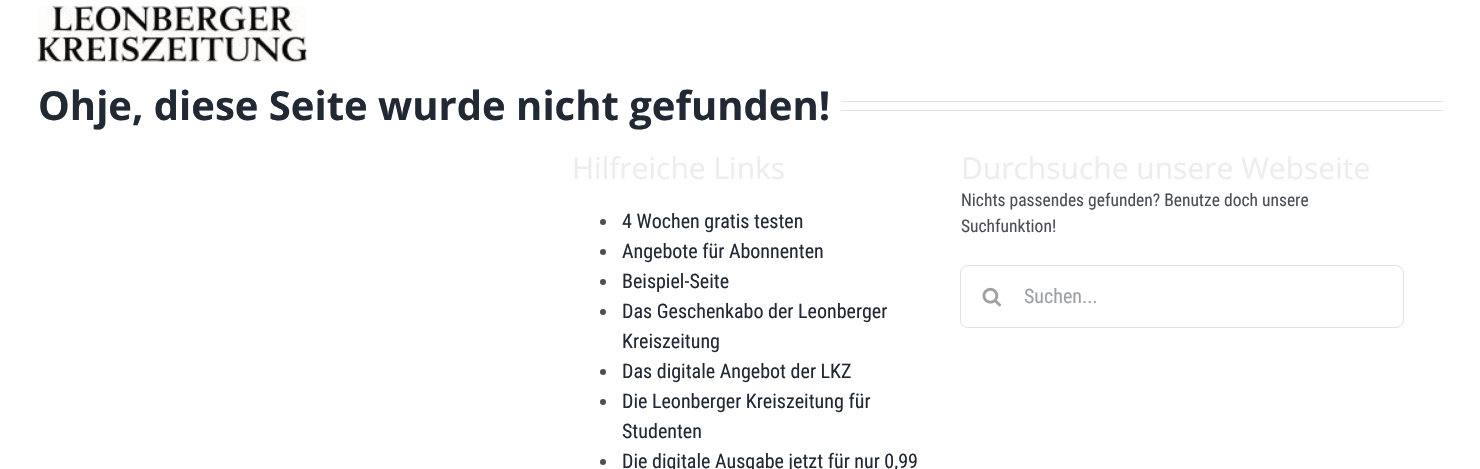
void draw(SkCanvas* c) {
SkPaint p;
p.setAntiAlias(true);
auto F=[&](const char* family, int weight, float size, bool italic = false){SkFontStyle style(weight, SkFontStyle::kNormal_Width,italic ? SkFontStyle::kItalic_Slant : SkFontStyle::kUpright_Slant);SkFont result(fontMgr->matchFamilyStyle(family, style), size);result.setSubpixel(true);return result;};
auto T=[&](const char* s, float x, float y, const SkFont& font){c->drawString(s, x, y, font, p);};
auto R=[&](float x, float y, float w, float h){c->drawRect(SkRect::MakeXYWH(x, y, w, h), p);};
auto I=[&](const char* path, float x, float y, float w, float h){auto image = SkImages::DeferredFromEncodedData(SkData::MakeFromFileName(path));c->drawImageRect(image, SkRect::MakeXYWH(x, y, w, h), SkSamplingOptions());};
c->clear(0xffffffff);
I("1.png",37,6,270,57);
auto f1 = F("Open Sans",700,40);
p.setColor(0xff212934);
T("Ohje, diese Seite wurde nicht gefunden!",38,120,f1);
p.setColor(0xffe2e2e2);
R(841,101,602,1);
R(841,110,602,1);
auto f2 = F("Open Sans",400,30);
p.setColor(0xffededed);
T("Hilfreiche Links",572,179,f2);
p.setColor(0xff4a4e57);
c->drawCircle(603,222,3,p);
auto f3 = F("Roboto Condensed",400,20);
p.setColor(0xff212934);
T("4 Wochen gratis testen",622,228,f3);
p.setColor(0xff4a4e57);
c->drawCircle(603,252,3,p);
p.setColor(0xff212934);
T("Angebote für Abonnenten",622,258,f3);
p.setColor(0xff4a4e57);
c->drawCircle(603,282,3,p);
p.setColor(0xff212934);
T("Beispiel-Seite",622,288,f3);
p.setColor(0xff4a4e57);
c->drawCircle(603,312,3,p);
p.setColor(0xff212934);
T("Das Geschenkabo der Leonberger",622,318,f3);
T("Kreiszeitung",622,348,f3);
p.setColor(0xff4a4e57);
c->drawCircle(603,372,3,p);
p.setColor(0xff212934);
T("Das digitale Angebot der LKZ",622,378,f3);
p.setColor(0xff4a4e57);
c->drawCircle(603,402,3,p);
p.setColor(0xff212934);
T("Die Leonberger Kreiszeitung für",622,408,f3);
T("Studenten",622,438,f3);
p.setColor(0xff4a4e57);
c->drawCircle(603,462,3,p);
p.setColor(0xff212934);
T("Die digitale Ausgabe jetzt für nur 0,99",622,468,f3);
p.setColor(0xffededed);
T("Durchsuche unsere Webseite",961,179,f2);
auto f4 = F("Roboto Condensed",400,17.5);
p.setColor(0xff4a4e57);
T("Nichts passendes gefunden? Benutze doch unsere",961,206,f4);
T("Suchfunktion!",961,232,f4);
p.setStroke(true);
p.setStrokeWidth(1);
p.setColor(0xffe2e2e2);
c->drawRoundRect(SkRect::MakeXYWH(960.5,265.5,443,62),7.5,7.5,p);
I("2.png",982,287,19,20);
p.setStroke(false);
p.setColor(0xff9ea0a4);
T("Suchen...",1024,303,f3);
}
